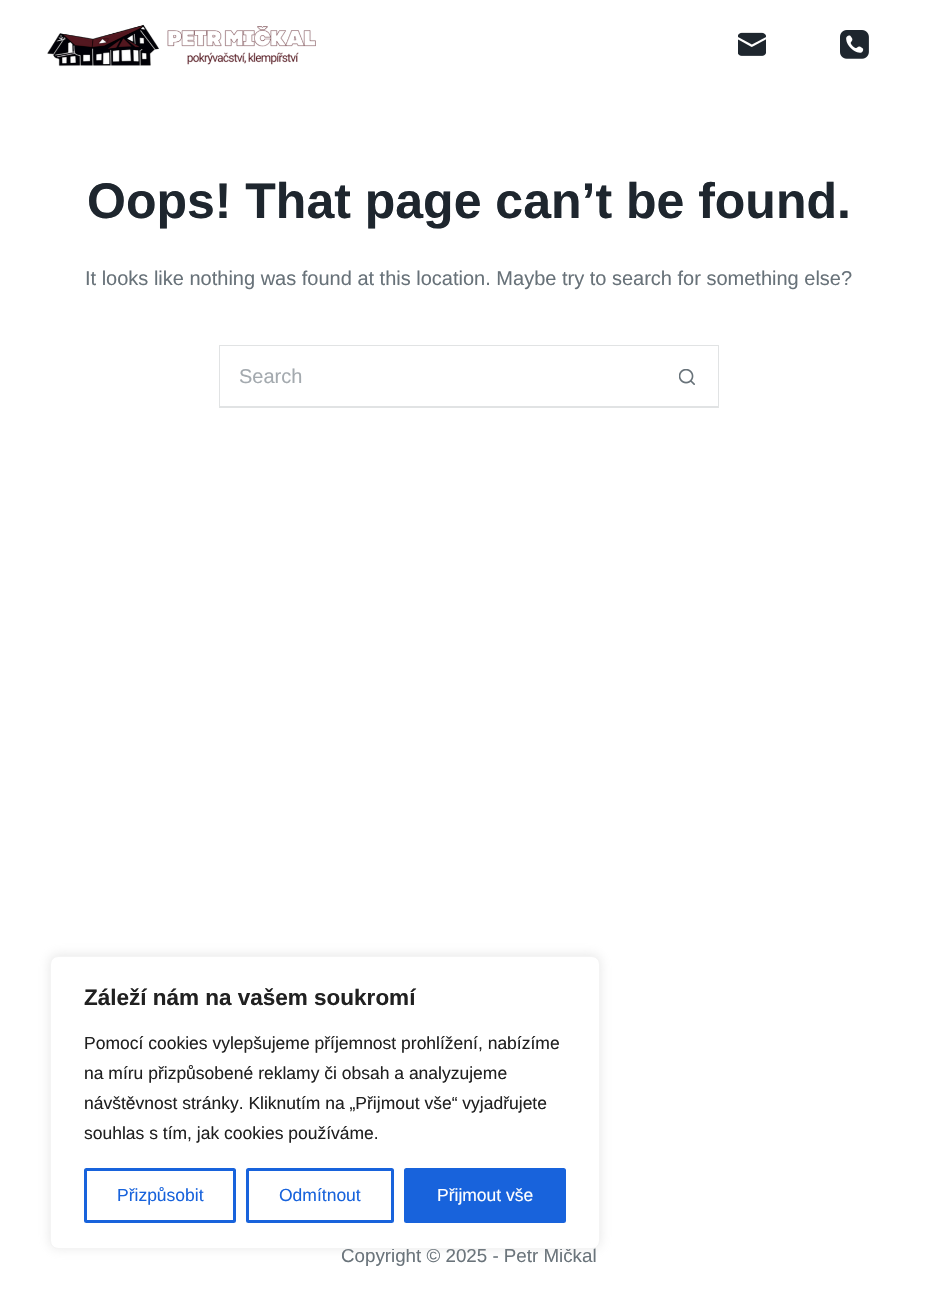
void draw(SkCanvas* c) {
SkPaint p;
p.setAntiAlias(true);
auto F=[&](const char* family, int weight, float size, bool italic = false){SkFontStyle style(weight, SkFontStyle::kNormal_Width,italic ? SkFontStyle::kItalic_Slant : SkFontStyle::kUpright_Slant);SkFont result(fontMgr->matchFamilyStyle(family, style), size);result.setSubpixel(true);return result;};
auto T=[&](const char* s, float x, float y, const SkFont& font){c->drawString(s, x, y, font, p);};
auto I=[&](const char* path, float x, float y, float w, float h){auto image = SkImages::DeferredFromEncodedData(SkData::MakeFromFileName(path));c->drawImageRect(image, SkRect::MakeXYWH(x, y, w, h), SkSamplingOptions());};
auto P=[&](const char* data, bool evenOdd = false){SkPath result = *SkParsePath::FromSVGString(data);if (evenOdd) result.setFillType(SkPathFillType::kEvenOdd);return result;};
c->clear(0xffffffff);
I("1.png",47,24,269,43);
I("2.png",738,32,28,24);
I("3.png",840,30,29,29);
auto f1 = F("Liberation Sans",700,50);
p.setColor(0xff1e262e);
T("Oops! That page can’t be found.",87,218,f1);
auto f2 = F("Liberation Sans",400,20);
p.setColor(0xff687279);
T("It looks like nothing was found at this location. Maybe try to search for something else?",85,285,f2);
p.setColor(0xffe1e3e4);
c->drawPath(P("M219 345h437v1h-436z"),p);
c->drawPath(P("M656 408h-437l1-2h436z"),p);
p.setColor(0x33677178);
c->drawPath(P("M219 408v-63l1 1v60z"),p);
p.setColor(0xffa4aaaf);
T("Search",239,383,f2);
p.setColor(0xffe1e3e4);
c->drawPath(P("M656 345h63l-1 1h-62z"),p);
p.setColor(0x33677178);
c->drawPath(P("M719 345v63l-1-2v-60z"),p);
c->drawPath(P("M719 408h-63v-2h62z"),p);
I("4.png",679,369,16,16);
auto f3 = F("Liberation Sans",400,18.75);
p.setColor(0xff687279);
T("Copyright © 2025 - Petr Mičkal",341,1262,f3);
p.setColor(0x4dacabab);
p.setMaskFilter(SkMaskFilter::MakeBlur(kNormal_SkBlurStyle, 6));
c->drawRoundRect(SkRect::MakeXYWH(50,955,550,293),8,8,p);
p.setMaskFilter(nullptr);
p.setColor(0xffffffff);
c->drawRoundRect(SkRect::MakeXYWH(50.5,956.5,549,292),7.5,7.5,p);
p.setStroke(true);
p.setStrokeWidth(1);
p.setColor(0xfff4f4f4);
c->drawRoundRect(SkRect::MakeXYWH(50.5,956.5,549,292),7.5,7.5,p);
auto f4 = F("Liberation Sans",700,22.5);
p.setStroke(false);
p.setColor(0xff212121);
T("Záleží nám na vašem soukromí",84,1005,f4);
auto f5 = F("Liberation Sans",400,17.5);
T("Pomocí cookies vylepšujeme příjemnost prohlížení, nabízíme",84,1049,f5);
T("na míru přizpůsobené reklamy či obsah a analyzujeme",84,1079,f5);
T("návštěvnost stránky. Kliknutím na „Přijmout vše“ vyjadřujete",84,1109,f5);
T("souhlas s tím, jak cookies používáme.",84,1139,f5);
p.setStroke(true);
p.setStrokeWidth(3);
p.setColor(0xff1863dc);
c->drawRoundRect(SkRect::MakeXYWH(85.5,1169.5,149,52),1,1,p);
p.setStroke(false);
T("Přizpůsobit",117,1201,f5);
p.setStroke(true);
c->drawRoundRect(SkRect::MakeXYWH(247.5,1169.5,145,52),1,1,p);
p.setStroke(false);
T("Odmítnout",279,1201,f5);
c->drawRoundRect(SkRect::MakeXYWH(405.5,1169.5,159,52),1,1,p);
p.setStroke(true);
c->drawRoundRect(SkRect::MakeXYWH(405.5,1169.5,159,52),1,1,p);
p.setStroke(false);
p.setColor(0xffffffff);
T("Přijmout vše",437,1201,f5);
}
